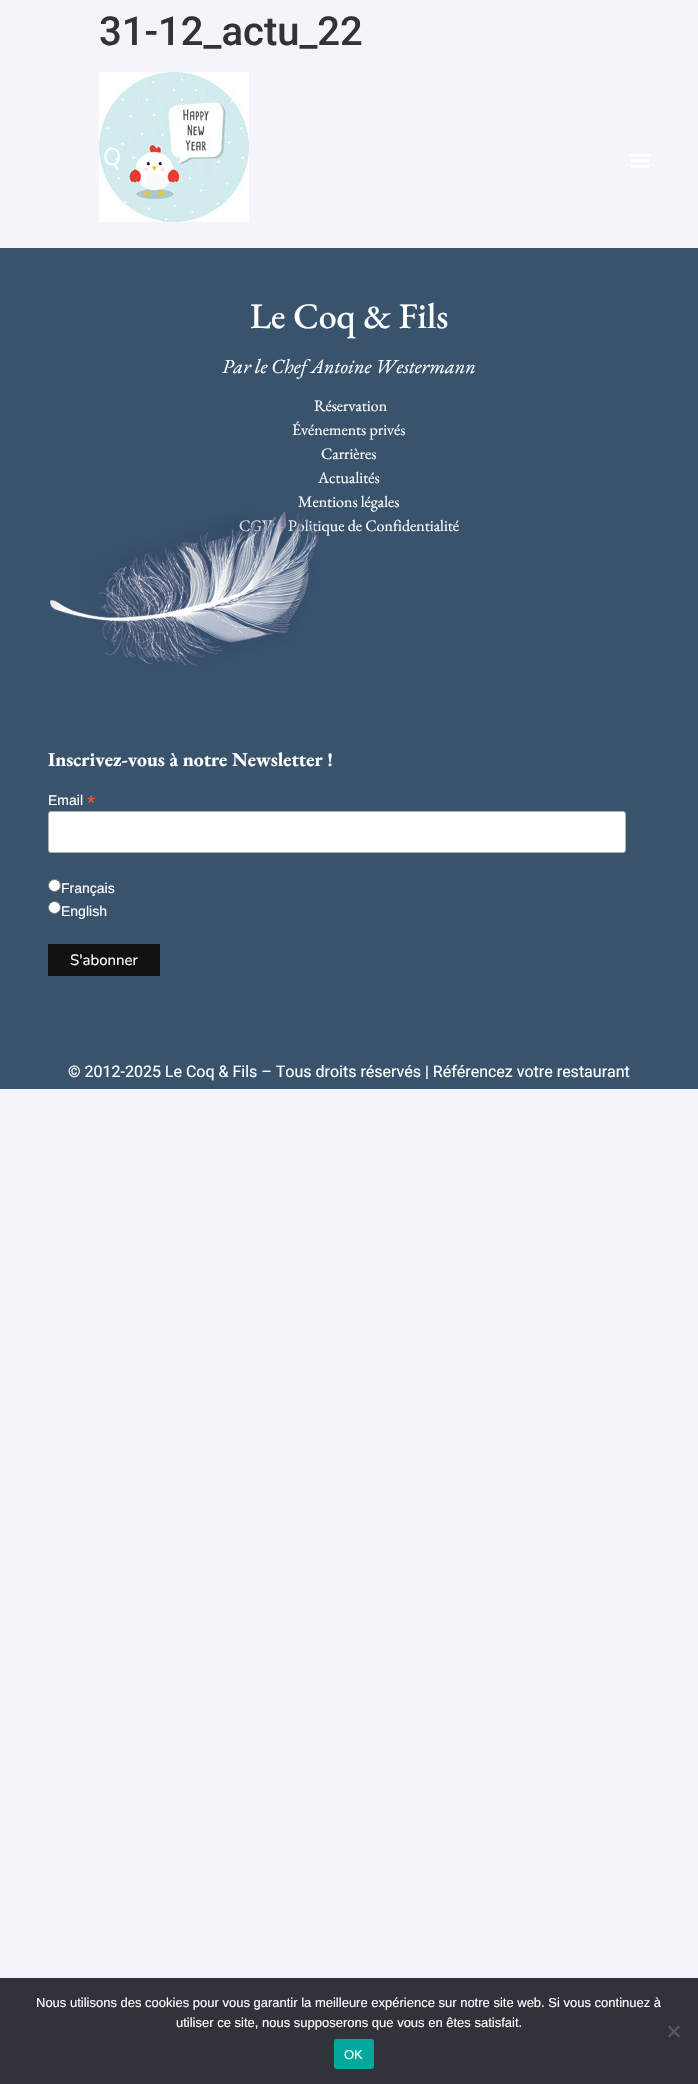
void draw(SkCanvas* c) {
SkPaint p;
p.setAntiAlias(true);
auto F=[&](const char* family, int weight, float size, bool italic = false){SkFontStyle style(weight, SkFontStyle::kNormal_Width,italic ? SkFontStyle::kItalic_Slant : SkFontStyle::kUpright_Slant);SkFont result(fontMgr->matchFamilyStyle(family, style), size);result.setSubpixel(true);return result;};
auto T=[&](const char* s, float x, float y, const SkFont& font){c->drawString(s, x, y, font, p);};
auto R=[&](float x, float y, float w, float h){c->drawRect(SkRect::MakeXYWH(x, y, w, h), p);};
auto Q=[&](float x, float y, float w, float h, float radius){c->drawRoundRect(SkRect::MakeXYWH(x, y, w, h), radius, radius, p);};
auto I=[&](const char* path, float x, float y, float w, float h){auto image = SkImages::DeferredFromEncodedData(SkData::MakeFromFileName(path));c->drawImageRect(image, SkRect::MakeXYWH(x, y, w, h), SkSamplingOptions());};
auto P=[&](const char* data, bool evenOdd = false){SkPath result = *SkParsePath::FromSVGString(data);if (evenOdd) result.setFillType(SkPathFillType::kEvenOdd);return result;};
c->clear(0xfff4f4fa);
auto f1 = F("Roboto",500,40);
p.setColor(0xff333333);
T("31-12_actu_22",99,45,f1);
I("1.png",99,72,150,150);
auto f2 = F("Nunito",400,24);
p.setColor(0xffffffff);
T("Q",103,165,f2);
I("2.png",630,154,20,14);
p.setColor(0xff39536d);
R(0,248,698,841);
auto f3 = F("EB Garamond",500,36);
p.setColor(0xffffffff);
T("Le Coq & Fils",250,328,f3);
auto f4 = F("EB Garamond",400,20,true);
T("Par le Chef Antoine Westermann",222,373,f4);
auto f5 = F("EB Garamond",400,16);
T("Réservation",314,411,f5);
T("Événements privés",292,435,f5);
T("Carrières",321,459,f5);
T("Actualités",318,483,f5);
T("Mentions légales",298,507,f5);
T("CGV – Politique de Confidentialité",239,531,f5);
I("3.png",50,511,270,156);
auto f6 = F("EB Garamond",700,19.6);
T("Inscrivez-vous à notre Newsletter !",48,766,f6);
auto f7 = F("Liberation Sans",400,14);
T("Email",48,805,f7);
auto f8 = F("Liberation Sans",400,21);
p.setColor(0xffe85c41);
T("*",87,810,f8);
p.setColor(0xffffffff);
c->drawRoundRect(SkRect::MakeXYWH(48.5,811.5,577,41),2.5,2.5,p);
p.setStroke(true);
p.setStrokeWidth(1);
p.setColor(0xffabb0b2);
c->drawRoundRect(SkRect::MakeXYWH(48.5,811.5,577,41),2.5,2.5,p);
p.setStroke(false);
p.setColor(0xffffffff);
c->drawCircle(54.5,885.5,6,p);
p.setStroke(true);
p.setColor(0xff767676);
c->drawCircle(54.5,885.5,6,p);
p.setStroke(false);
p.setColor(0xffffffff);
T("Français",61,893,f7);
c->drawCircle(54.5,907.5,6,p);
p.setStroke(true);
p.setColor(0xff767676);
c->drawCircle(54.5,907.5,6,p);
p.setStroke(false);
p.setColor(0xffffffff);
T("English",61,916,f7);
p.setColor(0xff111111);
R(48,944,112,32);
auto f9 = F("Nunito",400,15);
p.setColor(0xffffffff);
T("S'abonner",70,965,f9);
auto f10 = F("Roboto",400,16);
T("© 2012-2025 Le Coq & Fils – Tous droits réservés | Référencez votre restaurant",68,1077,f10);
p.setColor(0xff32323a);
R(0,1978,698,106);
auto f11 = F("Liberation Sans",400,13);
p.setColor(0xffffffff);
T("Nous utilisons des cookies pour vous garantir la meilleure expérience sur notre site web. Si vous continuez à",36,2007,f11);
T("utiliser ce site, nous supposerons que vous en êtes satisfait.",176,2027,f11);
p.setColor(0xff59595d);
c->drawPath(P("M678.5 2025.5l1.5 1.5l-10.5 10.5l-1.5-1.5z"),p);
c->drawPath(P("M668 2027l1.5-1.5l10.5 10.5l-1.5 1.5z"),p);
p.setColor(0xff00a99d);
Q(334,2039,40,30,3);
p.setColor(0xffffffff);
T("OK",344,2059,f11);
}
